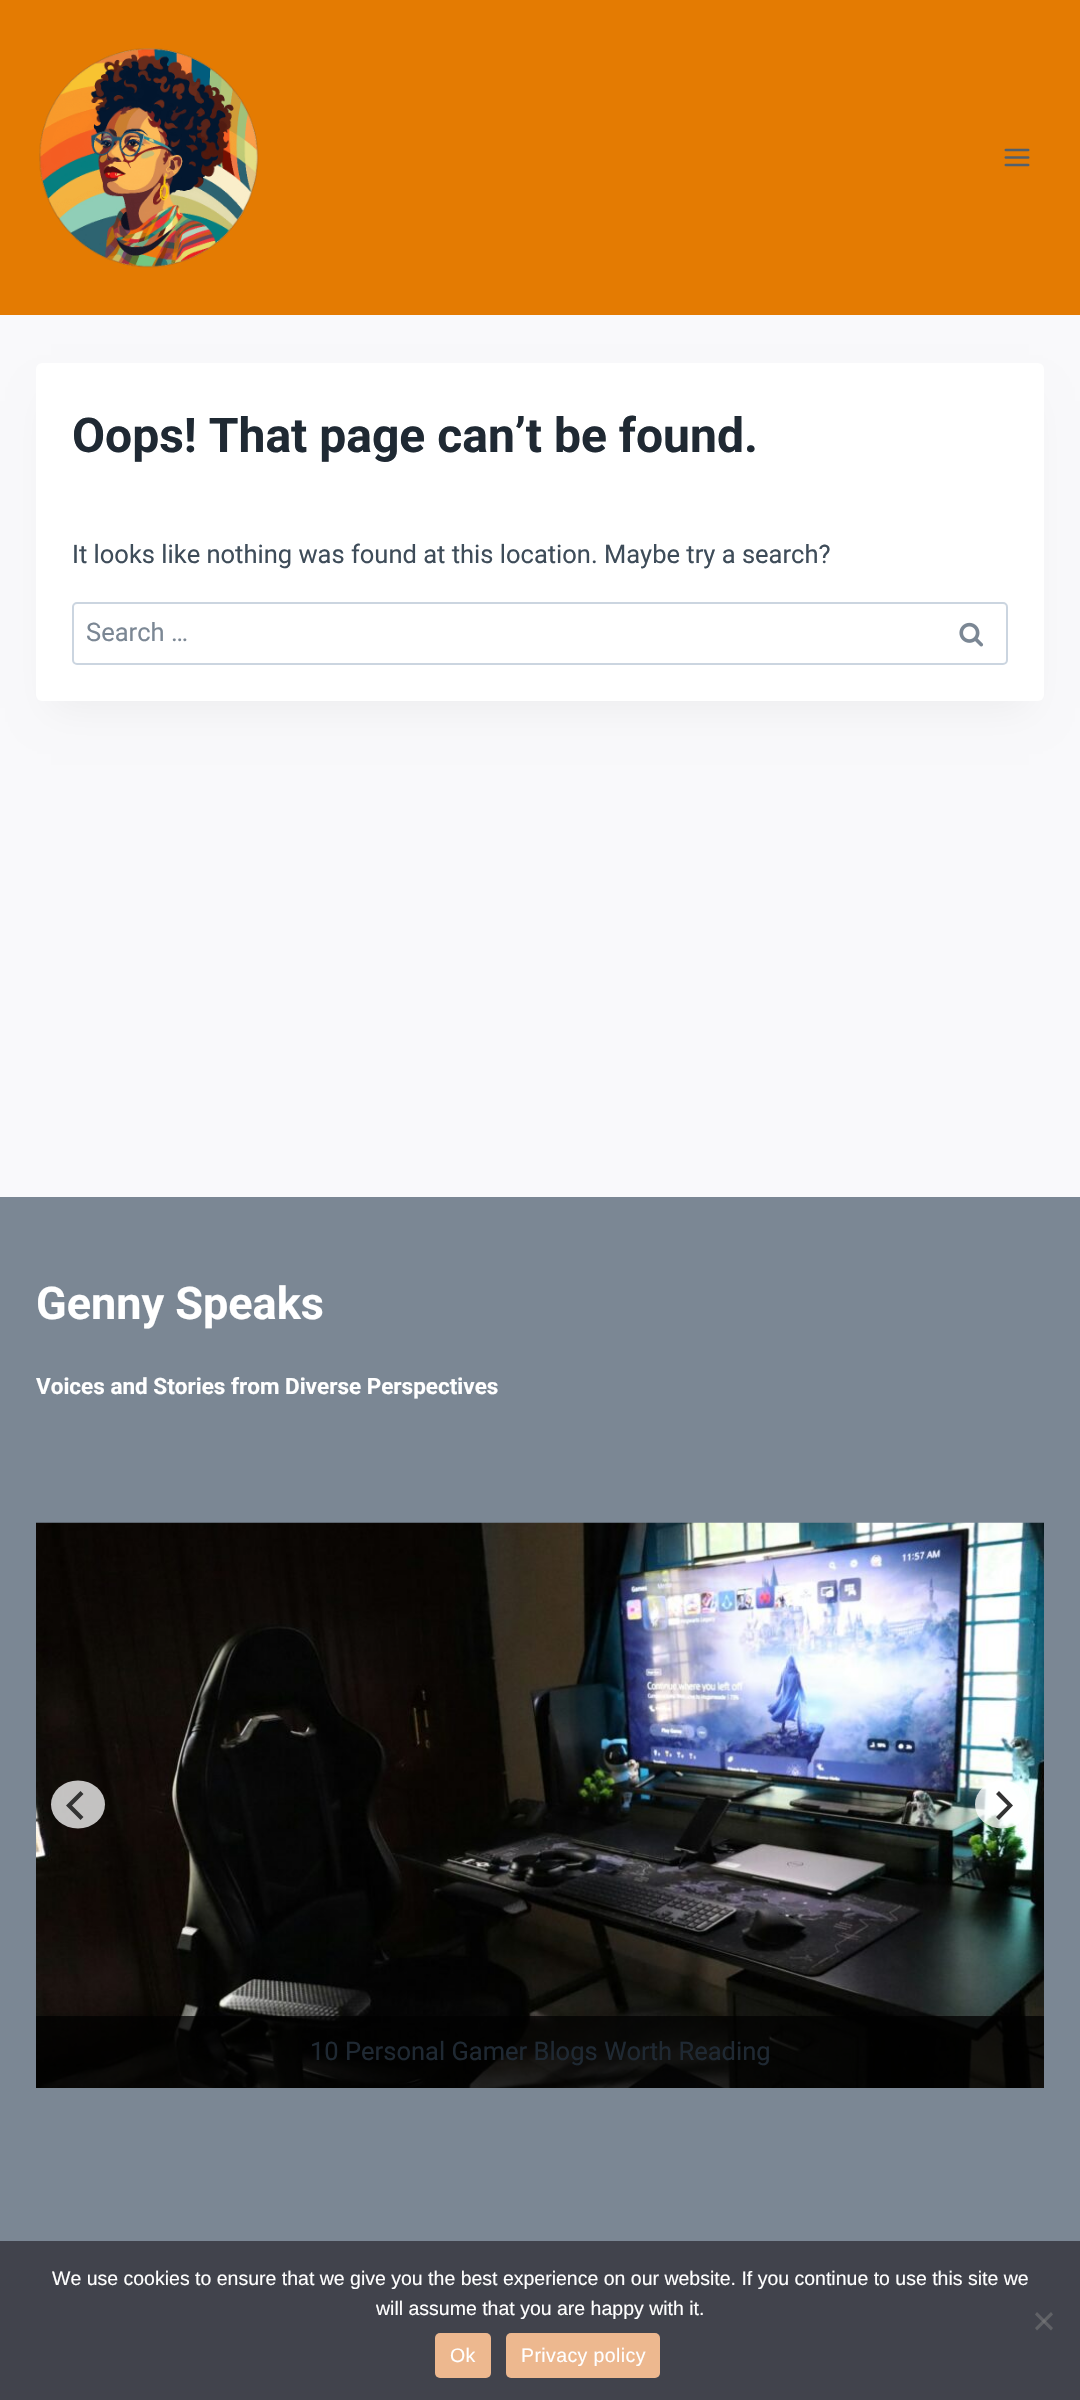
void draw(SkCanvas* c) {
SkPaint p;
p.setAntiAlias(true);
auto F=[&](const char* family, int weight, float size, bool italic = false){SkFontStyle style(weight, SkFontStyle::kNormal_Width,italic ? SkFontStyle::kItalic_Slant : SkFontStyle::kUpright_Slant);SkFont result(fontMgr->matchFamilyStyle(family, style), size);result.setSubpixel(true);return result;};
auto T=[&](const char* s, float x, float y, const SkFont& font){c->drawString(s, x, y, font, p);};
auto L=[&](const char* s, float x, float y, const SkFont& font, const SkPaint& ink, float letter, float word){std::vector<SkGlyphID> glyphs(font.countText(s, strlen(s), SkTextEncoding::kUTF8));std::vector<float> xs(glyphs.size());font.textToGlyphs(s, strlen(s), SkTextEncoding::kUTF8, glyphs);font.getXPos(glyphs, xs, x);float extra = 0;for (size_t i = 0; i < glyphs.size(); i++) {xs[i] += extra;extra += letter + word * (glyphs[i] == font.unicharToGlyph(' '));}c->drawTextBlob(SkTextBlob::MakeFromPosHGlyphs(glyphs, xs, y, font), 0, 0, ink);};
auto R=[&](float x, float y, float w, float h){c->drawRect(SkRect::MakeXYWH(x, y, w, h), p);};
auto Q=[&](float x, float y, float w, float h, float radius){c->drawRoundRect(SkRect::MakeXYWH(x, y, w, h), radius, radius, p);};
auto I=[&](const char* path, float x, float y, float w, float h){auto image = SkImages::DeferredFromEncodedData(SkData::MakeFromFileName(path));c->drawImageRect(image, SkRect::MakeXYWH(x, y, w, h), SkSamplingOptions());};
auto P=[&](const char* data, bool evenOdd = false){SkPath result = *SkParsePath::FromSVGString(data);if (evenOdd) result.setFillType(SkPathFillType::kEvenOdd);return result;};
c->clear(0xfff9f9fb);
p.setColor(0xffe47b02);
R(0,0,1080,315);
I("1.png",39,48,220,220);
I("2.png",1004,148,26,19);
p.setColor(0x0d000000);
p.setMaskFilter(SkMaskFilter::MakeBlur(kNormal_SkBlurStyle, 19));
c->drawRect(SkRect::MakeXYWH(51,401,978,307),p);
p.setMaskFilter(nullptr);
p.setColor(0xffffffff);
Q(36,363,1008,338,6);
auto f1 = F("Roboto",700,48);
p.setColor(0xff1f2933);
T("Oops! That page can’t be found.",72,452,f1);
auto f2 = F("Roboto",400,25.5);
p.setColor(0xff3e4c59);
T("It looks like nothing was found at this location. Maybe try a search?",72,563,f2);
p.setStroke(true);
p.setStrokeWidth(2);
p.setColor(0xffcbd5e0);
c->drawRoundRect(SkRect::MakeXYWH(73,603,934,61),4,4,p);
p.setStroke(false);
p.setColor(0xff7b8794);
T("Search …",86,641,f2);
I("3.png",959,622,25,25);
R(0,1197,1080,1203);
auto f3 = F("Roboto",700,45);
p.setColor(0xffffffff);
T("Genny Speaks",36,1319,f3);
auto f4 = F("Roboto",700,22.5);
T("Voices and Stories from Diverse Perspectives",36,1394,f4);
I("4.png",36,1522,1008,566);
p.setColor(0xbfffffff);
c->drawOval(SkRect::MakeXYWH(51,1780.5,54,48),p);
p.setColor(0xff333333);
c->drawPath(P("M66 1805.5l14.5 14.5l3-3l-11.5-11.5l11.5-11.5l-3-3z"),p);
p.setColor(0xbfffffff);
c->drawOval(SkRect::MakeXYWH(975,1780.5,54,48),p);
p.setColor(0xff333333);
c->drawPath(P("M1013 1805.5l-14-14.5l-3 3l11.5 11.5l-11.5 11.5l3 3z"),p);
p.setColor(0xbf000000);
R(36,2016,1008,72);
p.setColor(0xff1f2933);
T("10 Personal Gamer Blogs Worth Reading",310,2060,f2);
p.setColor(0xcc32323a);
R(0,2241,1080,159);
auto f5 = F("Liberation Sans",400,19.5);
p.setColor(0xffffffff);
T("We use cookies to ensure that we give you the best experience on our website. If you continue to use this site we",52,2285,f5);
T("will assume that you are happy with it.",376,2315,f5);
p.setColor(0xff606266);
c->drawPath(P("M1051 2312l2 2.5l-16 16l-2-2.5z"),p);
p.setColor(0x80808080);
c->drawPath(P("M1035 2314.5l2-2.5l16 16l-2 2.5z"),p);
p.setColor(0xffedb88f);
Q(435,2333,56,45,5);
p.setColor(0xffffffff);
L("Ok",450,2362,f5,p,.4,0);
p.setColor(0xffedb88f);
Q(506,2333,154,45,5);
p.setColor(0xffffffff);
L("Privacy policy",521,2362,f5,p,.4,0);
}
